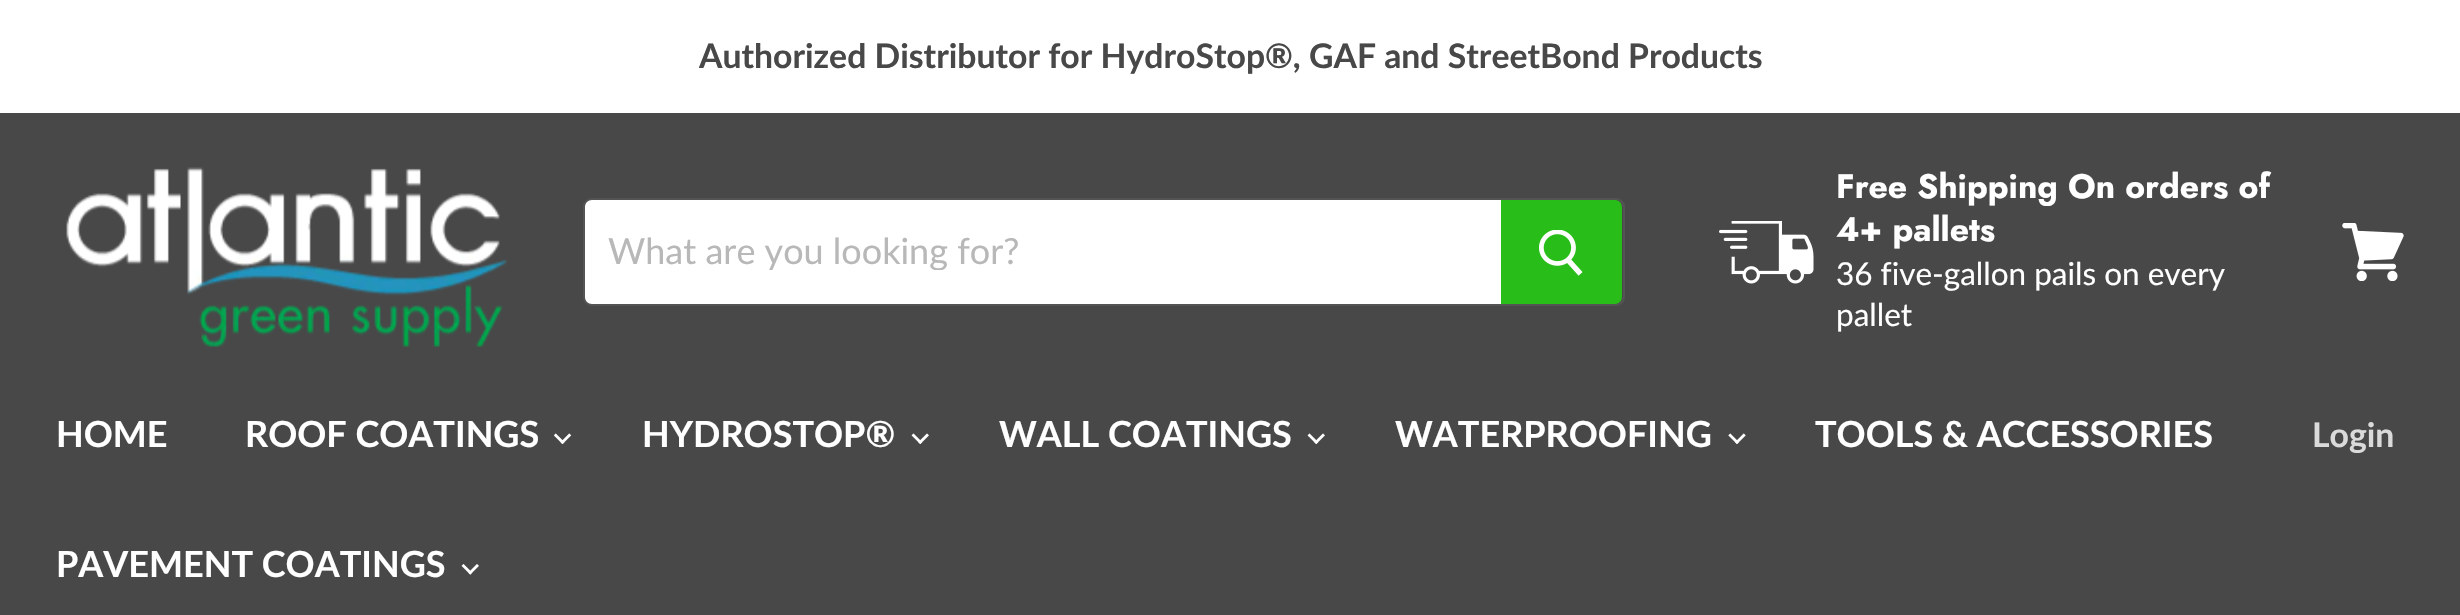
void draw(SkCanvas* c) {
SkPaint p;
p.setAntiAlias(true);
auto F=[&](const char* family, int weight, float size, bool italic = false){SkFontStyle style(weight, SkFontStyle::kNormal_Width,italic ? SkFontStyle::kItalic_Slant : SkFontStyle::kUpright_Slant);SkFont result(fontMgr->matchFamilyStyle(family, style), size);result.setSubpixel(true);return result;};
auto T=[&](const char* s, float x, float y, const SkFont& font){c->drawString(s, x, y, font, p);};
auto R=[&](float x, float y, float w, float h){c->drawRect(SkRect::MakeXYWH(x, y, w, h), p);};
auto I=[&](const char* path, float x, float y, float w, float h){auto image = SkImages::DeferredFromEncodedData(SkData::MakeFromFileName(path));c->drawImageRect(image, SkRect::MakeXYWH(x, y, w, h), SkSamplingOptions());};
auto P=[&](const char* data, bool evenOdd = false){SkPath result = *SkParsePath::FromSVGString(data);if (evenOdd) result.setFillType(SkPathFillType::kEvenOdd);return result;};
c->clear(0xffffffff);
auto f1 = F("Lato",700,33.75);
p.setColor(0xff484848);
T("Authorized Distributor for HydroStop®, GAF and StreetBond Products",699,68,f1);
R(0,113,2460,502);
I("1.png",66,167,441,180);
p.setStroke(true);
p.setStrokeWidth(2);
p.setColor(0x33808080);
c->drawRoundRect(SkRect::MakeXYWH(584,199,1040,106),8,8,p);
p.setStroke(false);
p.setColor(0xffffffff);
c->drawPath(P("M592 200h909v104h-909c-4 0-7-3-7-7v-90c0-4 3-7 7-7z"),p);
c->save();
c->clipRect(SkRect::MakeXYWH(608,227,870,43));
auto f2 = F("Lato",400,36);
p.setColor(0xffb8b8b8);
T("What are you looking for?",608,264,f2);
c->restore();
p.setColor(0xff28bd19);
c->drawPath(P("M1502 201h113c3.5 0 6 2.5 6 6v90c0 3.5-2.5 6-6 6h-113z"),p);
p.setStroke(true);
c->drawPath(P("M1502 201h113c3.5 0 6 2.5 6 6v90c0 3.5-2.5 6-6 6h-113z"),p);
I("2.png",1539,230,44,46);
I("3.png",1719,221,95,63);
auto f3 = F("Jost",700,33.75);
p.setStroke(false);
p.setColor(0xffffffff);
T("Free Shipping On orders of",1836,198,f3);
T("4+ pallets",1836,241,f3);
auto f4 = F("Lato",400,31.5);
T("36 five-gallon pails on every",1836,285,f4);
T("pallet",1836,326,f4);
I("4.png",2342,223,62,58);
auto f5 = F("Lato",700,36);
T("HOME",56,447,f5);
T("ROOF COATINGS",245,447,f5);
I("5.png",554,433,18,11);
T("HYDROSTOP®",642,447,f5);
I("6.png",911,433,18,11);
T("WALL COATINGS",999,447,f5);
I("6.png",1307,433,18,11);
T("WATERPROOFING",1395,447,f5);
I("7.png",1728,433,18,11);
T("TOOLS & ACCESSORIES",1815,447,f5);
T("PAVEMENT COATINGS",56,577,f5);
I("8.png",461,564,18,11);
p.setColor(0xffdadada);
T("Login",2312,447,f1);
}
